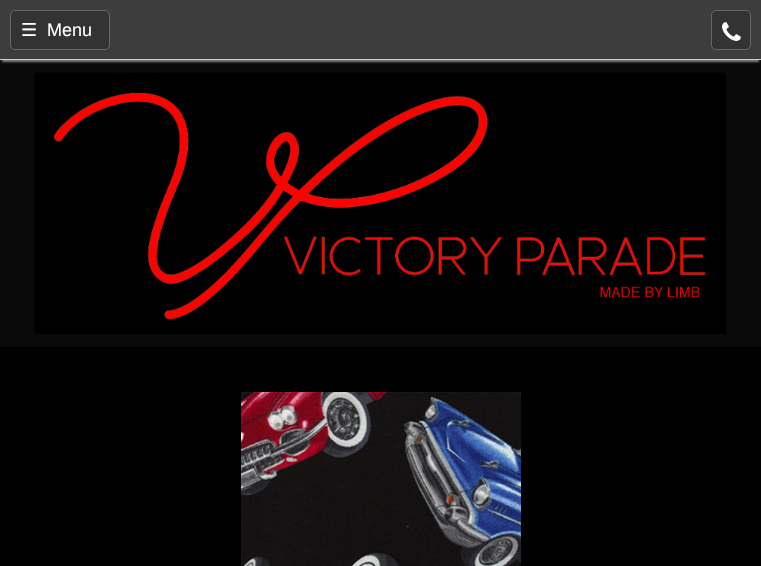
void draw(SkCanvas* c) {
SkPaint p;
p.setAntiAlias(true);
auto F=[&](const char* family, int weight, float size, bool italic = false){SkFontStyle style(weight, SkFontStyle::kNormal_Width,italic ? SkFontStyle::kItalic_Slant : SkFontStyle::kUpright_Slant);SkFont result(fontMgr->matchFamilyStyle(family, style), size);result.setSubpixel(true);return result;};
auto T=[&](const char* s, float x, float y, const SkFont& font){c->drawString(s, x, y, font, p);};
auto R=[&](float x, float y, float w, float h){c->drawRect(SkRect::MakeXYWH(x, y, w, h), p);};
auto I=[&](const char* path, float x, float y, float w, float h){auto image = SkImages::DeferredFromEncodedData(SkData::MakeFromFileName(path));c->drawImageRect(image, SkRect::MakeXYWH(x, y, w, h), SkSamplingOptions());};
c->clear(0xff010101);
I("2.png",0,60,761,287);
p.setColor(0xff808080);
p.setMaskFilter(SkMaskFilter::MakeBlur(kNormal_SkBlurStyle, 1));
c->drawRect(SkRect::MakeXYWH(2,6,757,56),p);
p.setMaskFilter(nullptr);
p.setColor(0xff3d3d3d);
R(0,0,761,59);
p.setColor(0xffcccccc);
R(0,59,761,1);
p.setColor(0xff333333);
c->drawRoundRect(SkRect::MakeXYWH(10.5,10.5,99,39),4.5,4.5,p);
p.setStroke(true);
p.setStrokeWidth(1);
p.setColor(0xff666666);
c->drawRoundRect(SkRect::MakeXYWH(10.5,10.5,99,39),4.5,4.5,p);
auto f1 = F("DejaVu Sans",400,18);
p.setStroke(false);
p.setColor(0xffffffff);
T("☰",21,36,f1);
auto f2 = F("Liberation Sans",400,18);
T("Menu",47,36,f2);
p.setColor(0xff333333);
c->drawRoundRect(SkRect::MakeXYWH(711.5,10.5,39,39),4.5,4.5,p);
p.setStroke(true);
p.setColor(0xff666666);
c->drawRoundRect(SkRect::MakeXYWH(711.5,10.5,39,39),4.5,4.5,p);
I("1.png",722,22,19,19);
I("3.png",241,392,280,174);
}
